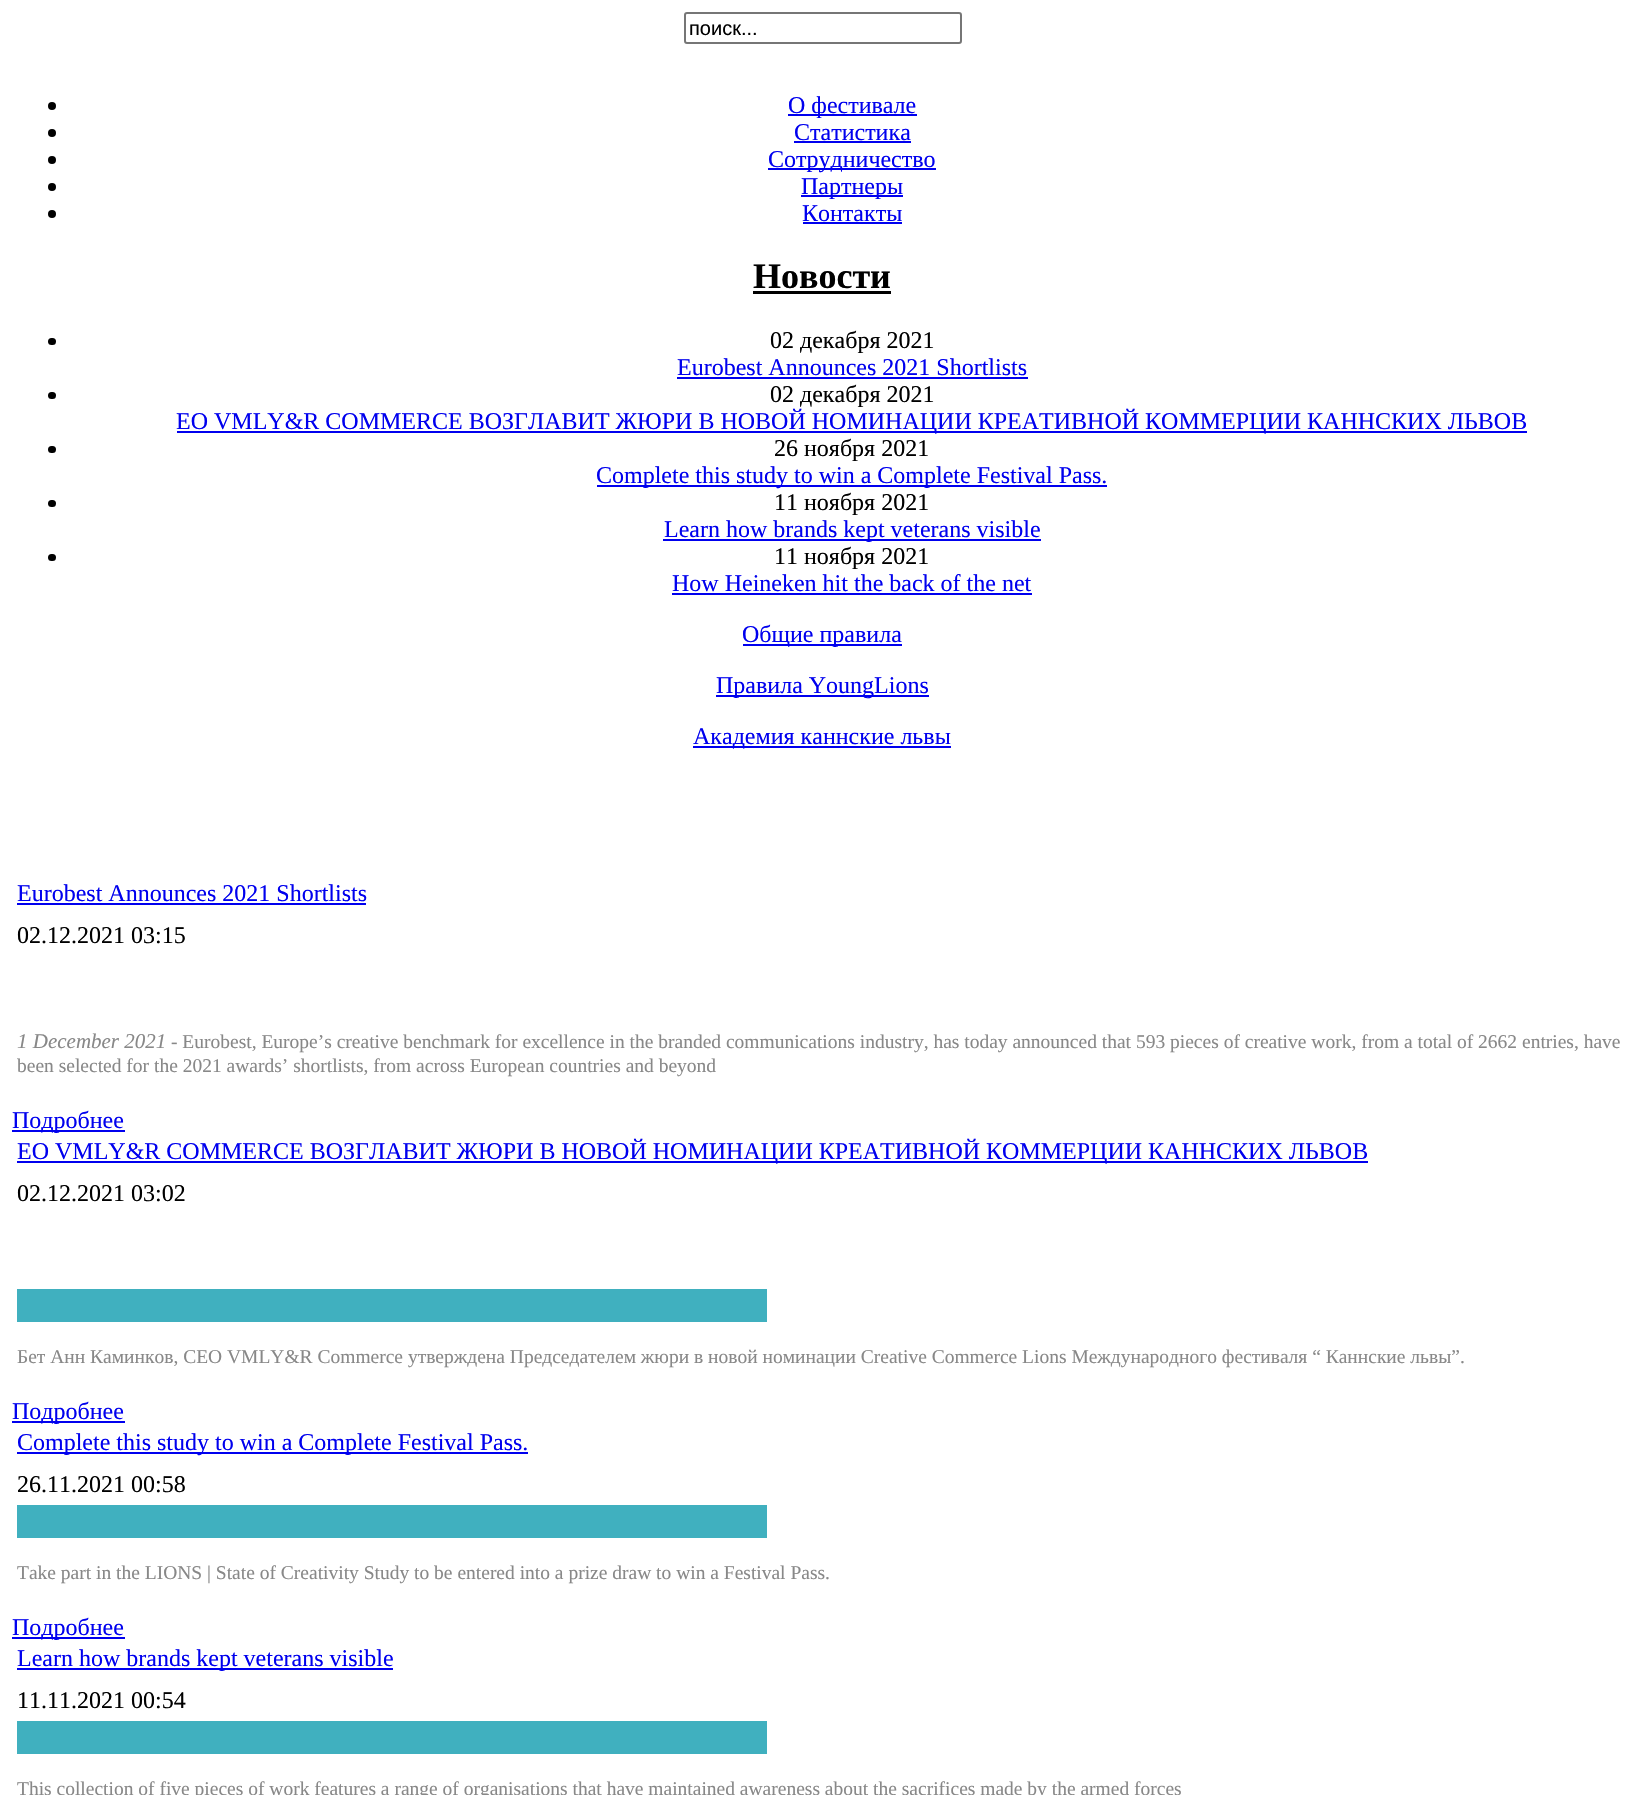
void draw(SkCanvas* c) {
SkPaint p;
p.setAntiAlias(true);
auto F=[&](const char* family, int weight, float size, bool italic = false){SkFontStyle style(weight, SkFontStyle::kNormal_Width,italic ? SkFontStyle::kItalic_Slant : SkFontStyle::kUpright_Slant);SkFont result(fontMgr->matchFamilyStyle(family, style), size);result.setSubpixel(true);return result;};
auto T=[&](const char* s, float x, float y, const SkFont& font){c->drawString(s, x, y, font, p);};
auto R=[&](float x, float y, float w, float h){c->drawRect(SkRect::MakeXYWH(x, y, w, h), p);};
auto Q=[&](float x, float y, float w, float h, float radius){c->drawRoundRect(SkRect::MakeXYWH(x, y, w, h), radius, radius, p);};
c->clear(0xffffffff);
p.setStroke(true);
p.setStrokeWidth(2);
p.setColor(0xff767676);
c->drawRoundRect(SkRect::MakeXYWH(685,13,276,30),2,2,p);
auto f1 = F("Liberation Sans",400,20);
p.setStroke(false);
p.setColor(0xff000000);
T("поиск...",689,35,f1);
c->drawCircle(52,106,4,p);
p.setColor(0xff0000ee);
R(788,114,129,2);
auto f2 = F("Liberation Serif",400,24);
T("О фестивале",788,113,f2);
p.setColor(0xff000000);
c->drawCircle(52,133,4,p);
p.setColor(0xff0000ee);
T("Статистика",794,140,f2);
R(794,141,117,2);
p.setColor(0xff000000);
c->drawCircle(52,160,4,p);
p.setColor(0xff0000ee);
R(768,168,168,2);
T("Cотрудничество",768,167,f2);
p.setColor(0xff000000);
c->drawCircle(52,187,4,p);
p.setColor(0xff0000ee);
R(801,195,102,2);
T("Партнеры",801,194,f2);
p.setColor(0xff000000);
c->drawCircle(52,214,4,p);
p.setColor(0xff0000ee);
T("Контакты",802,221,f2);
R(803,222,99,2);
auto f3 = F("Liberation Serif",700,36);
p.setColor(0xff000000);
T("Новости",753,288,f3);
R(753,291,138,3);
Q(48,338,8,7,3.5);
T("02 декабря 2021",770,348,f2);
p.setColor(0xff0000ee);
T("Eurobest Announces 2021 Shortlists",677,375,f2);
R(677,377,351,2);
p.setColor(0xff000000);
Q(48,392,8,7,3.5);
T("02 декабря 2021",770,402,f2);
p.setColor(0xff0000ee);
R(177,431,1350,2);
T("EO VMLY&R COMMERCE ВОЗГЛАВИТ ЖЮРИ В НОВОЙ НОМИНАЦИИ КРЕАТИВНОЙ КОММЕРЦИИ КАННСКИХ ЛЬВОВ",176,429,f2);
p.setColor(0xff000000);
Q(48,446,8,7,3.5);
T("26 ноября 2021",774,456,f2);
p.setColor(0xff0000ee);
R(597,485,510,2);
T("Complete this study to win a Complete Festival Pass.",596,483,f2);
p.setColor(0xff000000);
Q(48,500,8,7,3.5);
T("11 ноября 2021",774,510,f2);
p.setColor(0xff0000ee);
R(663,539,378,2);
T("Learn how brands kept veterans visible",664,537,f2);
p.setColor(0xff000000);
Q(48,554,8,7,3.5);
T("11 ноября 2021",774,564,f2);
p.setColor(0xff0000ee);
T("How Heineken hit the back of the net",672,591,f2);
R(672,593,360,2);
R(743,644,159,2);
T("Общие правила",742,642,f2);
R(716,695,213,2);
T("Правила YoungLions",716,693,f2);
R(693,746,258,2);
T("Академия каннские львы",693,744,f2);
T("Eurobest Announces 2021 Shortlists",17,901,f2);
R(17,903,349,2);
p.setColor(0xff000000);
T("02.12.2021 03:15",17,943,f2);
auto f4 = F("Liberation Serif",400,21,true);
p.setColor(0xff888888);
T("1 December 2021",17,1048,f4);
auto f5 = F("Liberation Serif",400,19.5);
T("- Eurobest, Europe’s creative benchmark for excellence in the branded communications industry, has today announced that 593 pieces of creative work, from a total of 2662 entries, have",171,1048,f5);
T("been selected for the 2021 awards’ shortlists, from across European countries and beyond",17,1072,f5);
p.setColor(0xff0000ee);
R(12,1130,113,2);
T("Подробнее",12,1128,f2);
R(17,1161,1351,2);
T("EO VMLY&R COMMERCE ВОЗГЛАВИТ ЖЮРИ В НОВОЙ НОМИНАЦИИ КРЕАТИВНОЙ КОММЕРЦИИ КАННСКИХ ЛЬВОВ",17,1159,f2);
p.setColor(0xff000000);
T("02.12.2021 03:02",17,1201,f2);
p.setColor(0xff40b0bf);
R(17,1289,750,33);
p.setColor(0xff888888);
T("Бет Анн Каминков, CEO VMLY&R Commerce утверждена Председателем жюри в новой номинации Creative Сommerce Lions Международного фестиваля “ Каннские львы”.",17,1363,f5);
p.setColor(0xff0000ee);
R(12,1421,113,2);
T("Подробнее",12,1419,f2);
R(17,1452,511,2);
T("Complete this study to win a Complete Festival Pass.",17,1450,f2);
p.setColor(0xff000000);
T("26.11.2021 00:58",17,1492,f2);
p.setColor(0xff40b0bf);
R(17,1505,750,33);
p.setColor(0xff888888);
T("Take part in the LIONS | State of Creativity Study to be entered into a prize draw to win a Festival Pass.",17,1579,f5);
p.setColor(0xff0000ee);
R(12,1637,113,2);
T("Подробнее",12,1635,f2);
R(17,1668,376,2);
T("Learn how brands kept veterans visible",17,1666,f2);
p.setColor(0xff000000);
T("11.11.2021 00:54",17,1708,f2);
p.setColor(0xff40b0bf);
R(17,1721,750,33);
p.setColor(0xff888888);
T("This collection of five pieces of work features a range of organisations that have maintained awareness about the sacrifices made by the armed forces",17,1795,f5);
}
